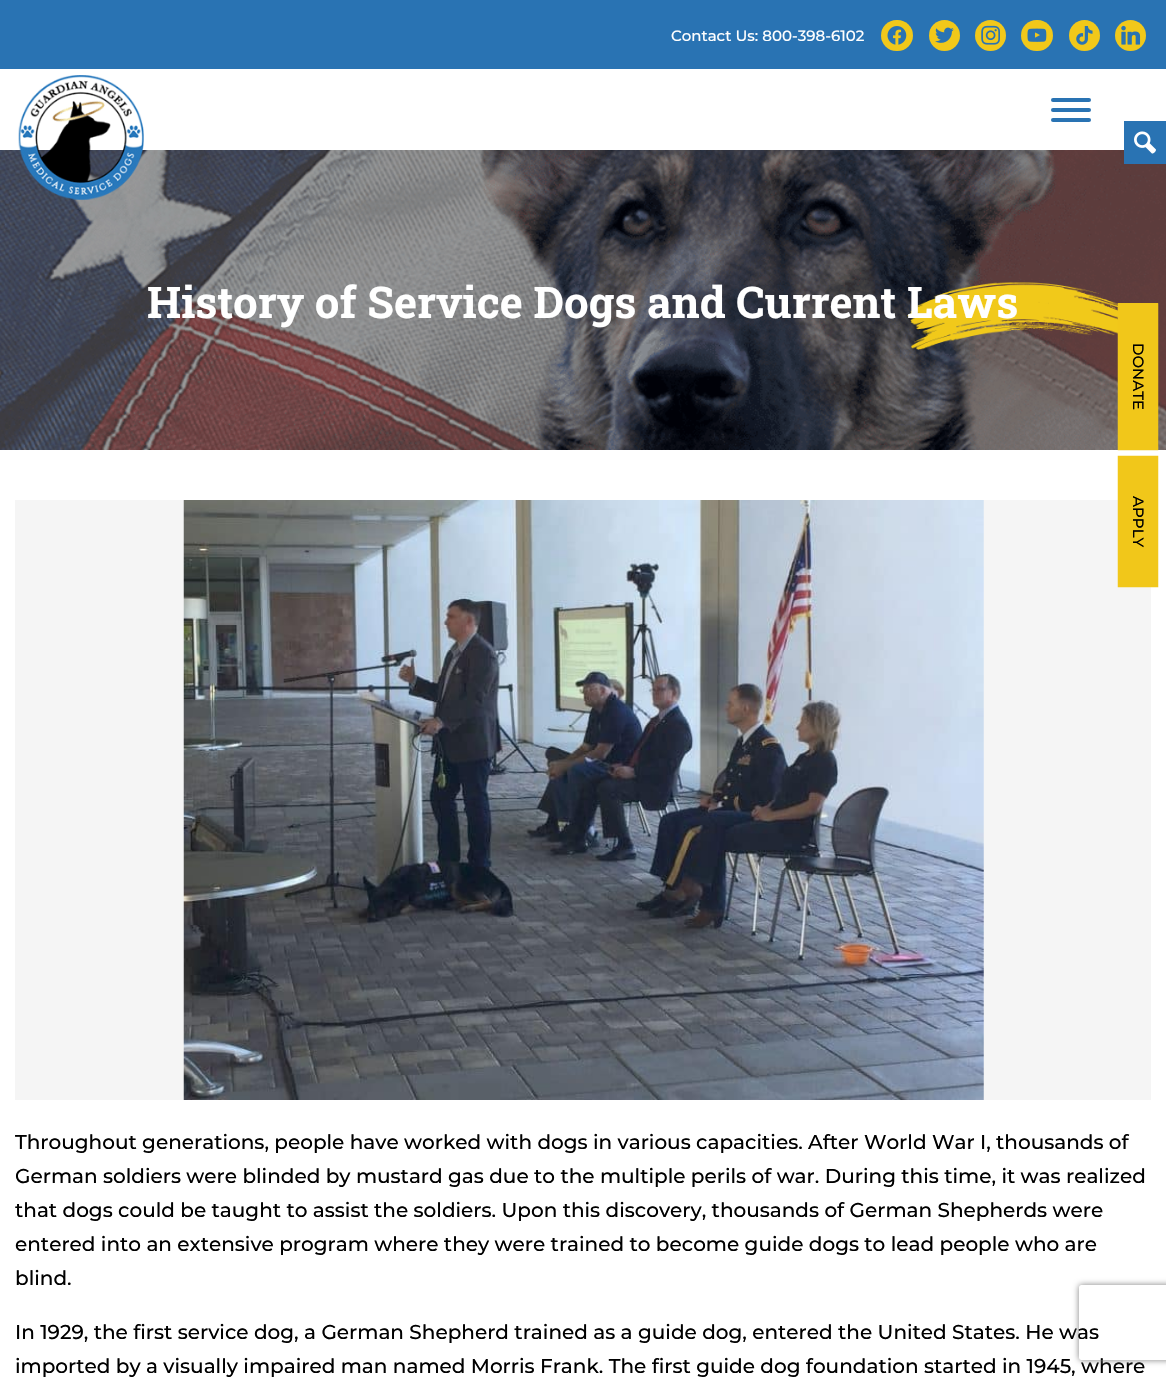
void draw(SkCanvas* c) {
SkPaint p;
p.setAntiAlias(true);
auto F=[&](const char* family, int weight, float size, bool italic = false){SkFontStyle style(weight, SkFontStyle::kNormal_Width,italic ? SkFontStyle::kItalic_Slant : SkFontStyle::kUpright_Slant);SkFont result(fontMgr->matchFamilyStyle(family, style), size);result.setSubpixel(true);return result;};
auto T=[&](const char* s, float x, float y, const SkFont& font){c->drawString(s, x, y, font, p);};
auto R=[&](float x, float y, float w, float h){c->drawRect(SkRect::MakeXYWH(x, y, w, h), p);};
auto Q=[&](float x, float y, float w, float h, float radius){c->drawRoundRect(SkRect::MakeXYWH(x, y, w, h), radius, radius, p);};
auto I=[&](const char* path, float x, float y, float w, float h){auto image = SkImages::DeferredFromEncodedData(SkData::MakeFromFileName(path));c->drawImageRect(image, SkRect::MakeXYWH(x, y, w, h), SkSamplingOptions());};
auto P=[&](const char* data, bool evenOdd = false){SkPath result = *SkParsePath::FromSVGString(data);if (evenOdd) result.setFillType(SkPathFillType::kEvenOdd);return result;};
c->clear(0xffffffff);
p.setColor(0xff2973b3);
R(0,0,1166,69);
auto f1 = F("Montserrat",500,15);
p.setColor(0xffffffff);
T("Contact Us: 800-398-6102",671,41,f1);
p.setColor(0xfff1c81a);
Q(881,20,32,31,15.5);
I("1.png",887,26,20,19);
c->drawCircle(944.5,35.5,15.5,p);
I("2.png",935,27,19,16);
c->drawCircle(990.5,35.5,15.5,p);
I("3.png",981,25,19,20);
Q(1021,20,32,31,15.5);
I("4.png",1027,28,20,14);
c->drawCircle(1084.5,35.5,15.5,p);
I("5.png",1076,26,17,19);
c->drawCircle(1130.5,35.5,15.5,p);
I("6.png",1121,25,20,20);
I("9.png",0,150,1166,300);
I("7.png",18,75,126,125);
p.setColor(0xff2973b3);
Q(1051,98,40,4,2);
Q(1051,108,40,4,2);
Q(1051,118,40,4,2);
R(1124,121,42,43);
I("8.png",1134,131,22,23);
I("10.png",907,282,211,68);
auto f2 = F("Roboto Slab",700,43.75);
p.setColor(0xffffffff);
T("History of Service Dogs and Current Laws",147,318,f2);
p.setColor(0xfff1c71a);
R(1118,303,40,145);
p.setStroke(true);
p.setStrokeWidth(2.5);
c->drawPath(P("M1157 304.5v144.5h-38v-144.5z"),p);
p.setStroke(false);
p.setColor(0xff000000);
c->save();
c->rotate(90,1133,343);
T("DONATE",1133,343,f1);
c->restore();
p.setColor(0xfff5f5f5);
R(15,500,1136,600);
p.setColor(0xfff1c71a);
R(1120,458,36,127);
p.setStroke(true);
c->drawPath(P("M1157 457v129h-38v-129z"),p);
p.setStroke(false);
p.setColor(0xff000000);
c->save();
c->rotate(90,1133,496);
T("APPLY",1133,496,f1);
c->restore();
I("11.png",183,500,801,600);
auto f3 = F("Montserrat",500,20);
T("Throughout generations, people have worked with dogs in various capacities. After World War I, thousands of",15,1149,f3);
T("German soldiers were blinded by mustard gas due to the multiple perils of war. During this time, it was realized",15,1183,f3);
T("that dogs could be taught to assist the soldiers. Upon this discovery, thousands of German Shepherds were",15,1217,f3);
T("entered into an extensive program where they were trained to become guide dogs to lead people who are",15,1251,f3);
T("blind.",15,1285,f3);
T("In 1929, the first service dog, a German Shepherd trained as a guide dog, entered the United States. He was",15,1339,f3);
T("imported by a visually impaired man named Morris Frank. The first guide dog foundation started in 1945, where",15,1373,f3);
c->save();
c->clipPath(P("M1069 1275h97v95h-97zm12.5 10h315c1.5 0 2.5 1 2.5 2.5v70c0 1.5-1 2.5-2.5 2.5h-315c-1.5 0-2.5-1-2.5-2.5v-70c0-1.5 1-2.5 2.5-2.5z",true),true);
p.setColor(0xff808080);
p.setMaskFilter(SkMaskFilter::MakeBlur(kNormal_SkBlurStyle, 3));
c->drawRoundRect(SkRect::MakeXYWH(1079,1285,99,75),2.5,2.5,p);
p.setMaskFilter(nullptr);
c->restore();
}
